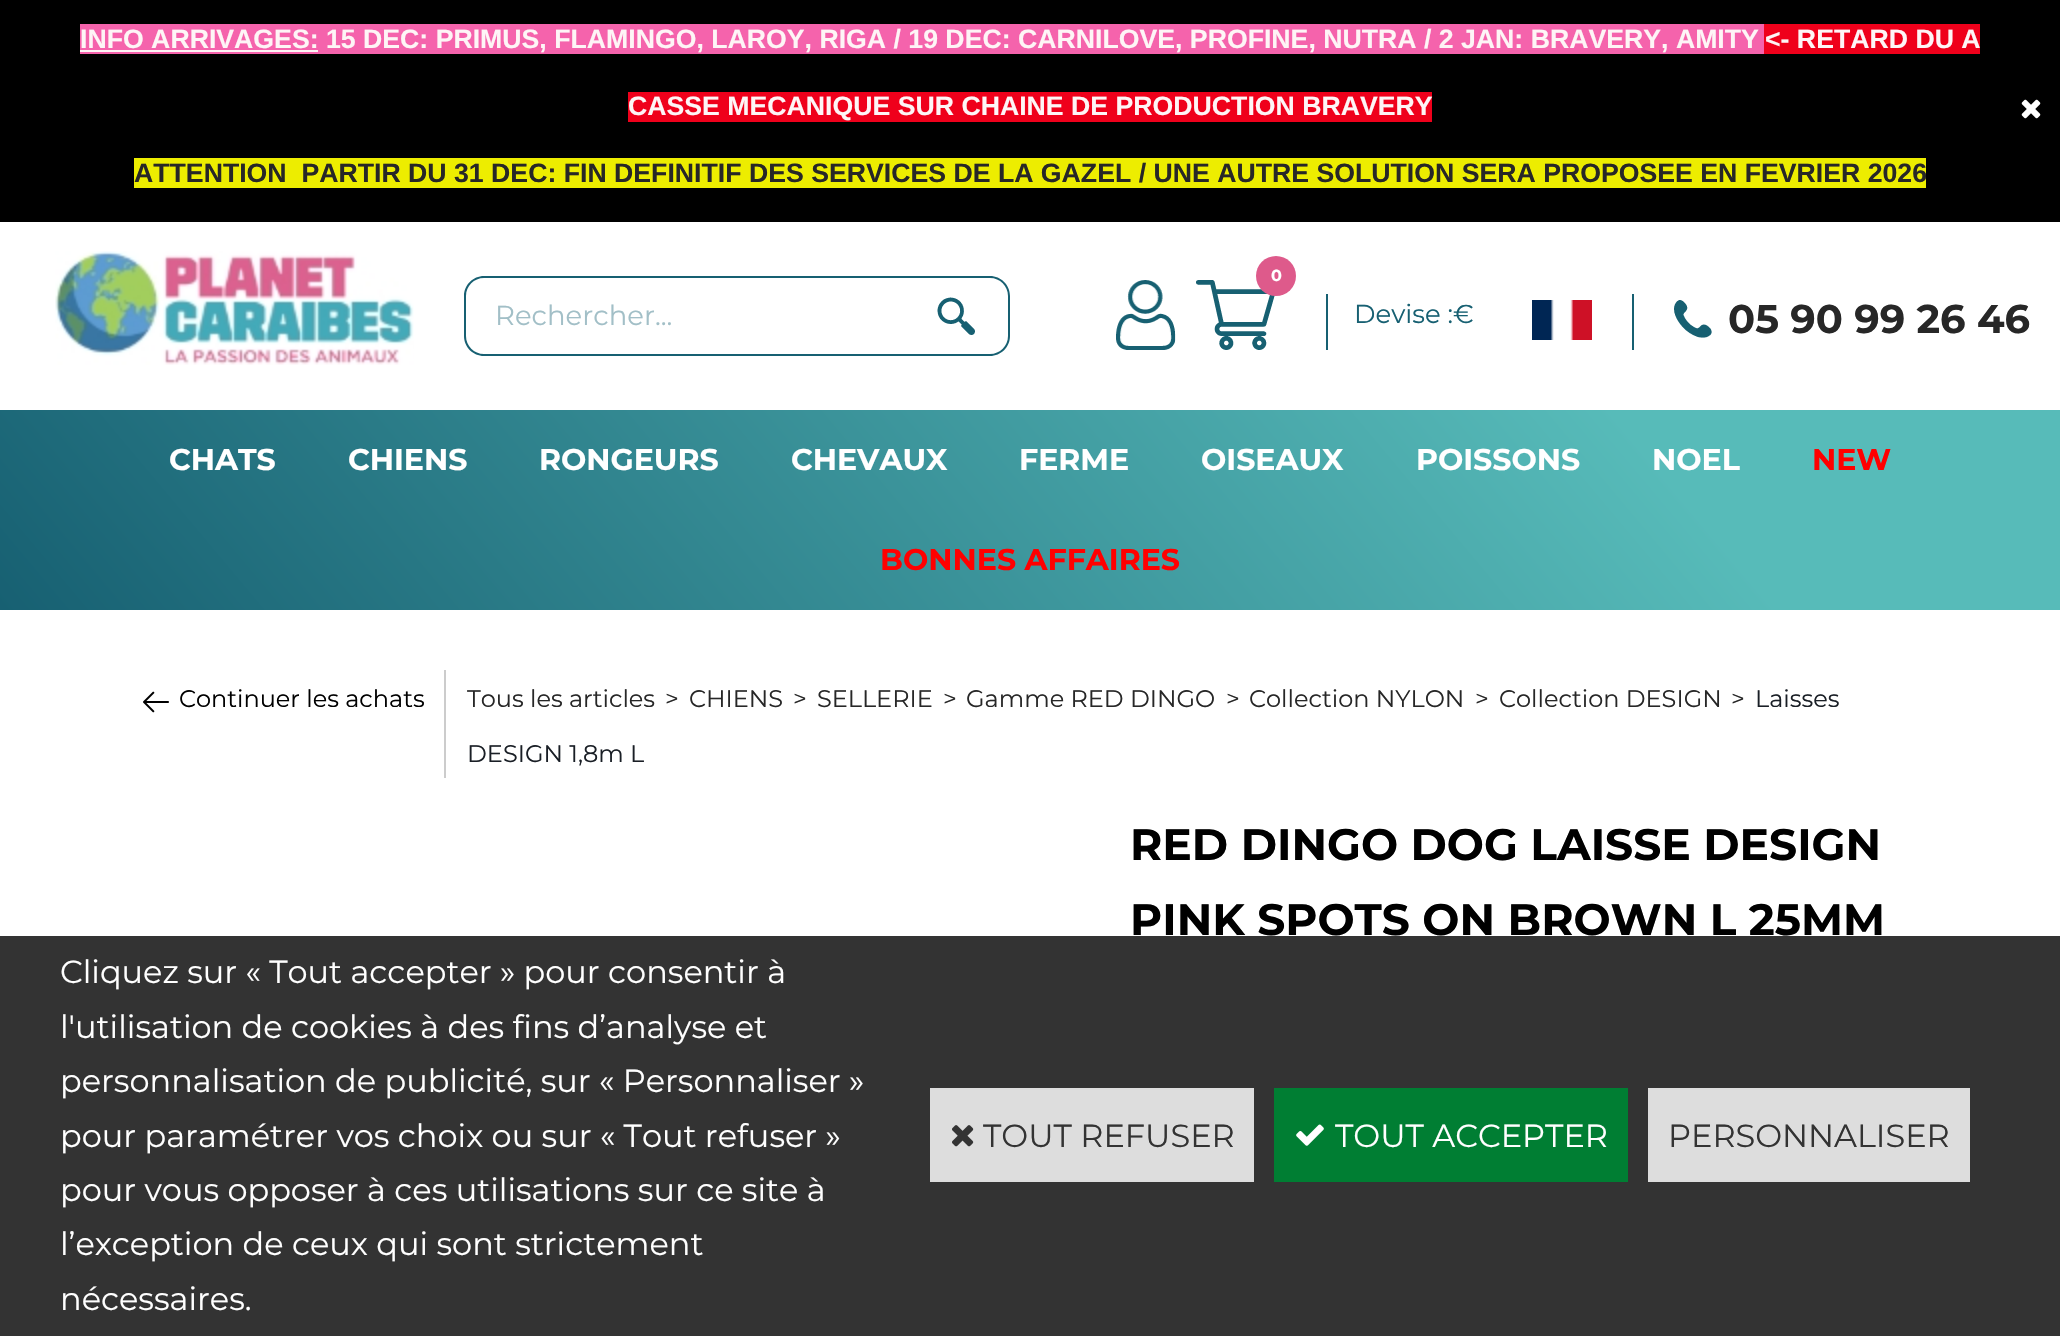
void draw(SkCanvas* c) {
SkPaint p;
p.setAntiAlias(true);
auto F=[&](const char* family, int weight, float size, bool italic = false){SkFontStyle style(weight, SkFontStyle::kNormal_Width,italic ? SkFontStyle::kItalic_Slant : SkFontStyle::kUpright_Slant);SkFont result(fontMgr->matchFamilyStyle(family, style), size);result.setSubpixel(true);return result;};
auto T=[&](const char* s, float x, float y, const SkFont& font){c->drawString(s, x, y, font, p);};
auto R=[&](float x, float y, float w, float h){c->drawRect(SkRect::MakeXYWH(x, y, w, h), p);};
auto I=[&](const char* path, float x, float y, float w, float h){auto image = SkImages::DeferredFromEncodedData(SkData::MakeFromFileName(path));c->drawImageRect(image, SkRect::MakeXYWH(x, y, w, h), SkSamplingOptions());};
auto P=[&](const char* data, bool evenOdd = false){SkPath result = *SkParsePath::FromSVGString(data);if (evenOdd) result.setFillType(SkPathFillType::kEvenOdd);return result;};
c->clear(0xffffffff);
p.setColor(0xff000000);
R(0,0,2060,222);
p.setColor(0xfff563ac);
R(80,24,1684,30);
p.setColor(0xfffef5f6);
R(80,50,238,2);
auto f1 = F("Liberation Sans",700,26.67);
T("INFO ARRIVAGES: 15 DEC: PRIMUS, FLAMINGO, LAROY, RIGA / 19 DEC: CARNILOVE, PROFINE, NUTRA / 2 JAN: BRAVERY, AMITY",80,48,f1);
p.setColor(0xffef001b);
R(1764,24,216,30);
p.setColor(0xfffef5f6);
T("<- RETARD DU A",1765,48,f1);
p.setColor(0xffef001b);
R(628,92,804,30);
p.setColor(0xfffef5f6);
T("CASSE MECANIQUE SUR CHAINE DE PRODUCTION BRAVERY",628,115,f1);
p.setColor(0xffeded00);
R(134,158,1792,30);
p.setColor(0xff272727);
T("ATTENTION  PARTIR DU 31 DEC: FIN DEFINITIF DES SERVICES DE LA GAZEL / UNE AUTRE SOLUTION SERA PROPOSEE EN FEVRIER 2026",134,182,f1);
I("1.png",2021,99,20,20);
I("2.png",55,251,359,114);
p.setColor(0xff176072);
c->drawPath(P("M484 276h420v80h-420c-11 0-20-9-20-20v-40c0-11 9-20 20-20zm0 2h420v76h-420c-10 0-18-8-18-18v-40c0-10 8-18 18-18z",true),p);
auto f2 = F("Montserrat",400,27.5);
p.setColor(0xffa2bfc7);
T("Rechercher...",495,325,f2);
p.setColor(0xff176072);
c->drawPath(P("M904 276h86c11 0 20 9 20 20v40c0 11-9 20-20 20h-86zm0 2h86c10 0 18 8 18 18v40c0 10-8 18-18 18h-86z",true),p);
I("3.png",937,297,38,38);
I("4.png",1196,280,79,70);
p.setColor(0xffde5a8b);
c->drawCircle(1276,276,20,p);
auto f3 = F("Montserrat",700,16);
p.setColor(0xffffffff);
T("0",1271,281,f3);
I("5.png",1116,280,60,70);
p.setColor(0xff176072);
R(1326,294,2,56);
auto f4 = F("Montserrat",400,26);
T("Devise :€",1354,323,f4);
I("6.png",1532,300,60,40);
R(1632,294,2,56);
I("7.png",1674,300,38,38);
auto f5 = F("Montserrat",700,40);
p.setColor(0xff272727);
T("05 90 99 26 46",1728,333,f5);
{
const SkColor colors[] = {0xff176072,0xff57bbb9};
const float stops[] = {0,.8};
const SkPoint ends[] = {{376,1058}, {1684,-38}};
p.setShader(SkGradientShader::MakeLinear(ends, colors, stops, 2, SkTileMode::kClamp));
p.setAlpha(255);
}
R(0,410,2060,200);
auto f6 = F("Montserrat",700,30);
p.setShader(nullptr);
p.setColor(0xffffffff);
T("CHATS",169,470,f6);
T("CHIENS",348,470,f6);
T("RONGEURS",539,470,f6);
T("CHEVAUX",791,470,f6);
T("FERME",1019,470,f6);
T("OISEAUX",1201,470,f6);
T("POISSONS",1416,470,f6);
T("NOEL",1652,470,f6);
p.setColor(0xffff0000);
T("NEW",1812,470,f6);
T("BONNES AFFAIRES",880,570,f6);
I("8.png",143,691,26,22);
auto f7 = F("Montserrat",400,24);
p.setColor(0xff000000);
T("Continuer les achats",179,707,f7);
p.setColor(0xffcccccc);
R(444,670,2,108);
p.setColor(0xff272727);
T("Tous les articles",467,707,f7);
T(">",665,707,f7);
T("CHIENS",689,707,f7);
T(">",793,707,f7);
T("SELLERIE",817,707,f7);
T(">",943,707,f7);
T("Gamme RED DINGO",966,707,f7);
T(">",1226,707,f7);
T("Collection NYLON",1249,707,f7);
T(">",1475,707,f7);
T("Collection DESIGN",1499,707,f7);
T(">",1731,707,f7);
p.setColor(0xff1a1f26);
T("Laisses",1755,707,f7);
T("DESIGN 1,8m L",467,762,f7);
auto f8 = F("Montserrat",700,44);
p.setColor(0xff000000);
T("RED DINGO DOG LAISSE DESIGN",1130,860,f8);
T("PINK SPOTS ON BROWN L 25MM",1130,935,f8);
p.setColor(0xff333333);
R(0,936,2060,400);
auto f9 = F("Montserrat",400,32);
p.setColor(0xffffffff);
T("Cliquez sur « Tout accepter » pour consentir à",60,983,f9);
T("l'utilisation de cookies à des fins d’analyse et",60,1038,f9);
T("personnalisation de publicité, sur « Personnaliser »",60,1092,f9);
T("pour paramétrer vos choix ou sur « Tout refuser »",60,1147,f9);
T("pour vous opposer à ces utilisations sur ce site à",60,1201,f9);
T("l’exception de ceux qui sont strictement",60,1255,f9);
T("nécessaires.",60,1310,f9);
p.setColor(0xffdddddd);
R(930,1088,324,94);
I("9.png",952,1125,22,22);
p.setColor(0xff333333);
T("TOUT REFUSER",983,1147,f9);
p.setColor(0xff007e33);
R(1274,1088,354,94);
I("10.png",1296,1124,28,22);
p.setColor(0xffffffff);
T("TOUT ACCEPTER",1335,1147,f9);
p.setColor(0xffdddddd);
R(1648,1088,322,94);
p.setColor(0xff333333);
T("PERSONNALISER",1668,1147,f9);
}
